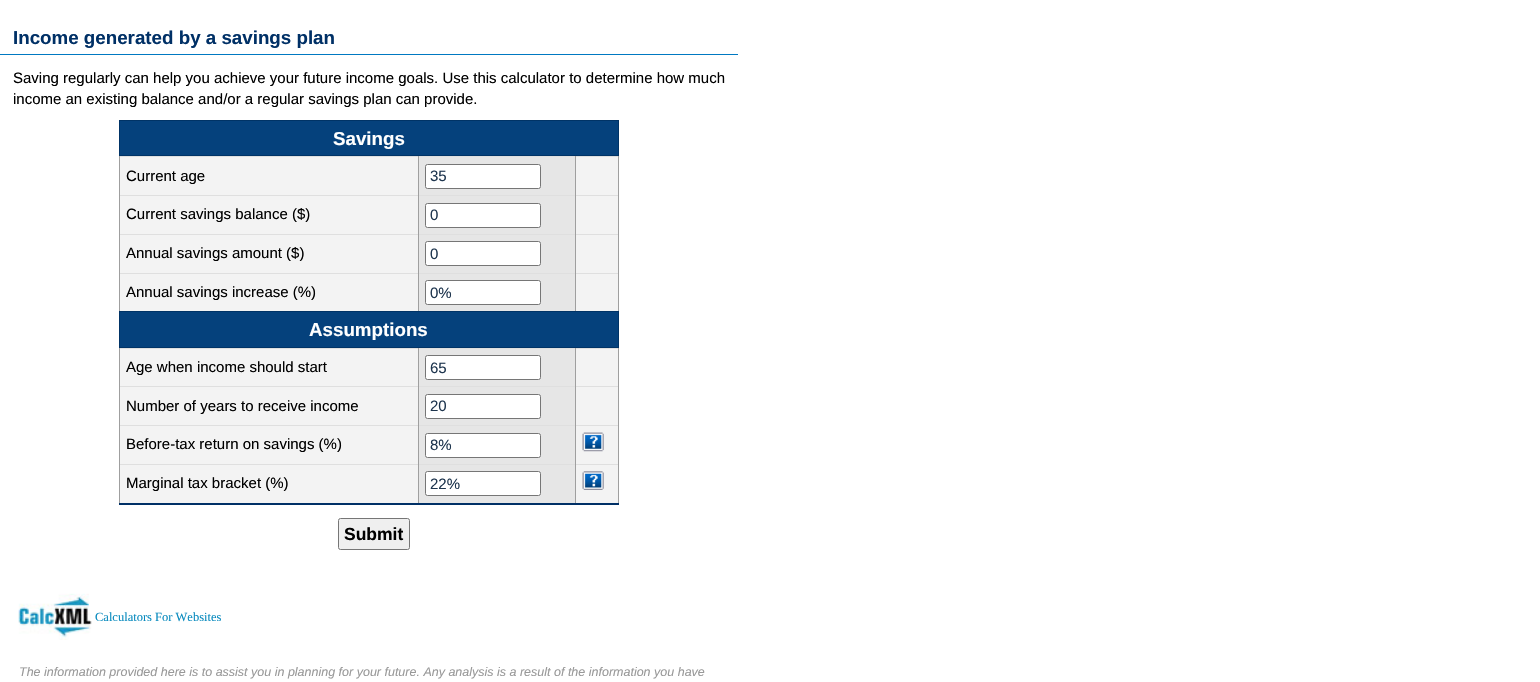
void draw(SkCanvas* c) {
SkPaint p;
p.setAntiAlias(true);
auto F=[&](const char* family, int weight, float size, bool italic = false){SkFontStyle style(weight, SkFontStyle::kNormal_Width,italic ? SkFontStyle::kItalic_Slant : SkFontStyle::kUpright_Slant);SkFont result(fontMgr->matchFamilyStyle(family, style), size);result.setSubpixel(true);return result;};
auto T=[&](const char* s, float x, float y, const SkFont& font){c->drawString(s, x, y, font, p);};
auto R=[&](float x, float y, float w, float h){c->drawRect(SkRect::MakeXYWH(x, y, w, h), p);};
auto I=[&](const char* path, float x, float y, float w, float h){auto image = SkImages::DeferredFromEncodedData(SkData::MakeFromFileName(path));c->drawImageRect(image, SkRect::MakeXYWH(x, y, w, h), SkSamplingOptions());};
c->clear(0xffffffff);
p.setColor(0xff0079c2);
R(0,54,738,1);
auto f1 = F("Liberation Sans",700,18.75);
p.setColor(0xff003066);
T("Income generated by a savings plan",13,44,f1);
auto f2 = F("Liberation Sans",400,15);
p.setColor(0xff000000);
T("Saving regularly can help you achieve your future income goals. Use this calculator to determine how much",13,83,f2);
T("income an existing balance and/or a regular savings plan can provide.",13,104,f2);
p.setColor(0xff003066);
R(119,503,500,2);
p.setColor(0xff05417c);
c->drawRect(SkRect::MakeXYWH(119.5,120.5,499,35),p);
p.setStroke(true);
p.setStrokeWidth(1);
p.setColor(0xff003366);
c->drawRect(SkRect::MakeXYWH(119.5,120.5,499,35),p);
p.setStroke(false);
p.setColor(0xffffffff);
T("Savings",333,145,f1);
p.setColor(0xfff3f3f3);
R(120,157,298,38);
p.setColor(0xffdfdfdf);
R(119,156,500,1);
p.setColor(0xff9f9f9f);
R(119,156,1,39);
p.setColor(0xff000000);
T("Current age",126,181,f2);
p.setColor(0xffe6e6e6);
R(419,157,156,38);
p.setColor(0xff9f9f9f);
R(575,156,1,39);
R(418,156,1,39);
p.setColor(0xffffffff);
c->drawRoundRect(SkRect::MakeXYWH(425.5,164.5,115,24),2,2,p);
p.setStroke(true);
p.setColor(0xff767676);
c->drawRoundRect(SkRect::MakeXYWH(425.5,164.5,115,24),2,2,p);
p.setStroke(false);
p.setColor(0xff1e354e);
T("35",430,181,f2);
p.setColor(0xfff3f3f3);
R(576,157,42,38);
p.setColor(0xff9f9f9f);
R(618,156,1,39);
p.setColor(0xfff3f3f3);
R(120,196,298,38);
p.setColor(0xffdfdfdf);
R(119,195,500,1);
p.setColor(0xff9f9f9f);
R(119,195,1,39);
p.setColor(0xff000000);
T("Current savings balance ($)",126,219,f2);
p.setColor(0xffe6e6e6);
R(419,196,156,38);
p.setColor(0xff9f9f9f);
R(575,195,1,39);
R(418,195,1,39);
p.setColor(0xffffffff);
c->drawRoundRect(SkRect::MakeXYWH(425.5,203.5,115,24),2,2,p);
p.setStroke(true);
p.setColor(0xff767676);
c->drawRoundRect(SkRect::MakeXYWH(425.5,203.5,115,24),2,2,p);
p.setStroke(false);
p.setColor(0xff1e354e);
T("0",430,220,f2);
p.setColor(0xfff3f3f3);
R(576,196,42,38);
p.setColor(0xff9f9f9f);
R(618,195,1,39);
p.setColor(0xfff3f3f3);
R(120,235,298,38);
p.setColor(0xffdfdfdf);
R(119,234,500,1);
p.setColor(0xff9f9f9f);
R(119,234,1,39);
p.setColor(0xff000000);
T("Annual savings amount ($)",126,258,f2);
p.setColor(0xffe6e6e6);
R(419,235,156,38);
p.setColor(0xff9f9f9f);
R(575,234,1,39);
R(418,234,1,39);
p.setColor(0xffffffff);
c->drawRoundRect(SkRect::MakeXYWH(425.5,241.5,115,24),2,2,p);
p.setStroke(true);
p.setColor(0xff767676);
c->drawRoundRect(SkRect::MakeXYWH(425.5,241.5,115,24),2,2,p);
p.setStroke(false);
p.setColor(0xff1e354e);
T("0",430,259,f2);
p.setColor(0xfff3f3f3);
R(576,235,42,38);
p.setColor(0xff9f9f9f);
R(618,234,1,39);
p.setColor(0xfff3f3f3);
R(120,274,298,37);
p.setColor(0xffdfdfdf);
R(119,273,500,1);
p.setColor(0xff9f9f9f);
R(119,273,1,38);
p.setColor(0xff000000);
T("Annual savings increase (%)",126,297,f2);
p.setColor(0xffe6e6e6);
R(419,274,156,37);
p.setColor(0xff9f9f9f);
R(575,273,1,38);
R(418,273,1,38);
p.setColor(0xffffffff);
c->drawRoundRect(SkRect::MakeXYWH(425.5,280.5,115,24),2,2,p);
p.setStroke(true);
p.setColor(0xff767676);
c->drawRoundRect(SkRect::MakeXYWH(425.5,280.5,115,24),2,2,p);
p.setStroke(false);
p.setColor(0xff1e354e);
T("0%",430,298,f2);
p.setColor(0xfff3f3f3);
R(576,274,42,37);
p.setColor(0xff9f9f9f);
R(618,273,1,38);
p.setColor(0xff05417c);
c->drawRect(SkRect::MakeXYWH(119.5,311.5,499,36),p);
p.setStroke(true);
p.setColor(0xff003366);
c->drawRect(SkRect::MakeXYWH(119.5,311.5,499,36),p);
p.setStroke(false);
p.setColor(0xffffffff);
T("Assumptions",309,336,f1);
p.setColor(0xfff3f3f3);
R(120,349,298,37);
p.setColor(0xffdfdfdf);
R(119,348,500,1);
p.setColor(0xff9f9f9f);
R(119,348,1,38);
p.setColor(0xff000000);
T("Age when income should start",126,372,f2);
p.setColor(0xffe6e6e6);
R(419,349,156,37);
p.setColor(0xff9f9f9f);
R(575,348,1,38);
R(418,348,1,38);
p.setColor(0xffffffff);
c->drawRoundRect(SkRect::MakeXYWH(425.5,355.5,115,24),2,2,p);
p.setStroke(true);
p.setColor(0xff767676);
c->drawRoundRect(SkRect::MakeXYWH(425.5,355.5,115,24),2,2,p);
p.setStroke(false);
p.setColor(0xff1e354e);
T("65",430,373,f2);
p.setColor(0xfff3f3f3);
R(576,349,42,37);
p.setColor(0xff9f9f9f);
R(618,348,1,38);
p.setColor(0xfff3f3f3);
R(120,387,298,38);
p.setColor(0xffdfdfdf);
R(119,386,500,1);
p.setColor(0xff9f9f9f);
R(119,386,1,39);
p.setColor(0xff000000);
T("Number of years to receive income",126,411,f2);
p.setColor(0xffe6e6e6);
R(419,387,156,38);
p.setColor(0xff9f9f9f);
R(575,386,1,39);
R(418,386,1,39);
p.setColor(0xffffffff);
c->drawRoundRect(SkRect::MakeXYWH(425.5,394.5,115,24),2,2,p);
p.setStroke(true);
p.setColor(0xff767676);
c->drawRoundRect(SkRect::MakeXYWH(425.5,394.5,115,24),2,2,p);
p.setStroke(false);
p.setColor(0xff1e354e);
T("20",430,411,f2);
p.setColor(0xfff3f3f3);
R(576,387,42,38);
p.setColor(0xff9f9f9f);
R(618,386,1,39);
p.setColor(0xfff3f3f3);
R(120,426,298,38);
p.setColor(0xffdfdfdf);
R(119,425,500,1);
p.setColor(0xff9f9f9f);
R(119,425,1,39);
p.setColor(0xff000000);
T("Before-tax return on savings (%)",126,449,f2);
p.setColor(0xffe6e6e6);
R(419,426,156,38);
p.setColor(0xff9f9f9f);
R(575,425,1,39);
R(418,425,1,39);
p.setColor(0xffffffff);
c->drawRoundRect(SkRect::MakeXYWH(425.5,433.5,115,24),2,2,p);
p.setStroke(true);
p.setColor(0xff767676);
c->drawRoundRect(SkRect::MakeXYWH(425.5,433.5,115,24),2,2,p);
p.setStroke(false);
p.setColor(0xff1e354e);
T("8%",430,450,f2);
p.setColor(0xfff3f3f3);
R(576,426,42,38);
p.setColor(0xff9f9f9f);
R(618,425,1,39);
I("1.png",582,432,22,20);
p.setColor(0xfff3f3f3);
R(120,465,298,38);
p.setColor(0xffdfdfdf);
R(119,464,500,1);
p.setColor(0xff9f9f9f);
R(119,464,1,39);
p.setColor(0xff000000);
T("Marginal tax bracket (%)",126,488,f2);
p.setColor(0xffe6e6e6);
R(419,465,156,38);
p.setColor(0xff9f9f9f);
R(575,464,1,39);
R(418,464,1,39);
p.setColor(0xffffffff);
c->drawRoundRect(SkRect::MakeXYWH(425.5,471.5,115,24),2,2,p);
p.setStroke(true);
p.setColor(0xff767676);
c->drawRoundRect(SkRect::MakeXYWH(425.5,471.5,115,24),2,2,p);
p.setStroke(false);
p.setColor(0xff1e354e);
T("22%",430,489,f2);
p.setColor(0xfff3f3f3);
R(576,465,42,38);
p.setColor(0xff9f9f9f);
R(618,464,1,39);
I("2.png",582,471,22,19);
p.setColor(0xffefefef);
c->drawRoundRect(SkRect::MakeXYWH(338.5,518.5,71,31),2,2,p);
p.setStroke(true);
p.setColor(0xff767676);
c->drawRoundRect(SkRect::MakeXYWH(338.5,518.5,71,31),2,2,p);
auto f3 = F("Liberation Sans",700,17.5);
p.setStroke(false);
p.setColor(0xff000000);
T("Submit",344,540,f3);
I("3.png",18,593,74,47);
auto f4 = F("Liberation Serif",400,12.5);
p.setColor(0xff088abe);
T("Calculators For Websites",95,621,f4);
auto f5 = F("Liberation Sans",400,12.5,true);
p.setColor(0xff999999);
T("The information provided here is to assist you in planning for your future. Any analysis is a result of the information you have",19,676,f5);
}
